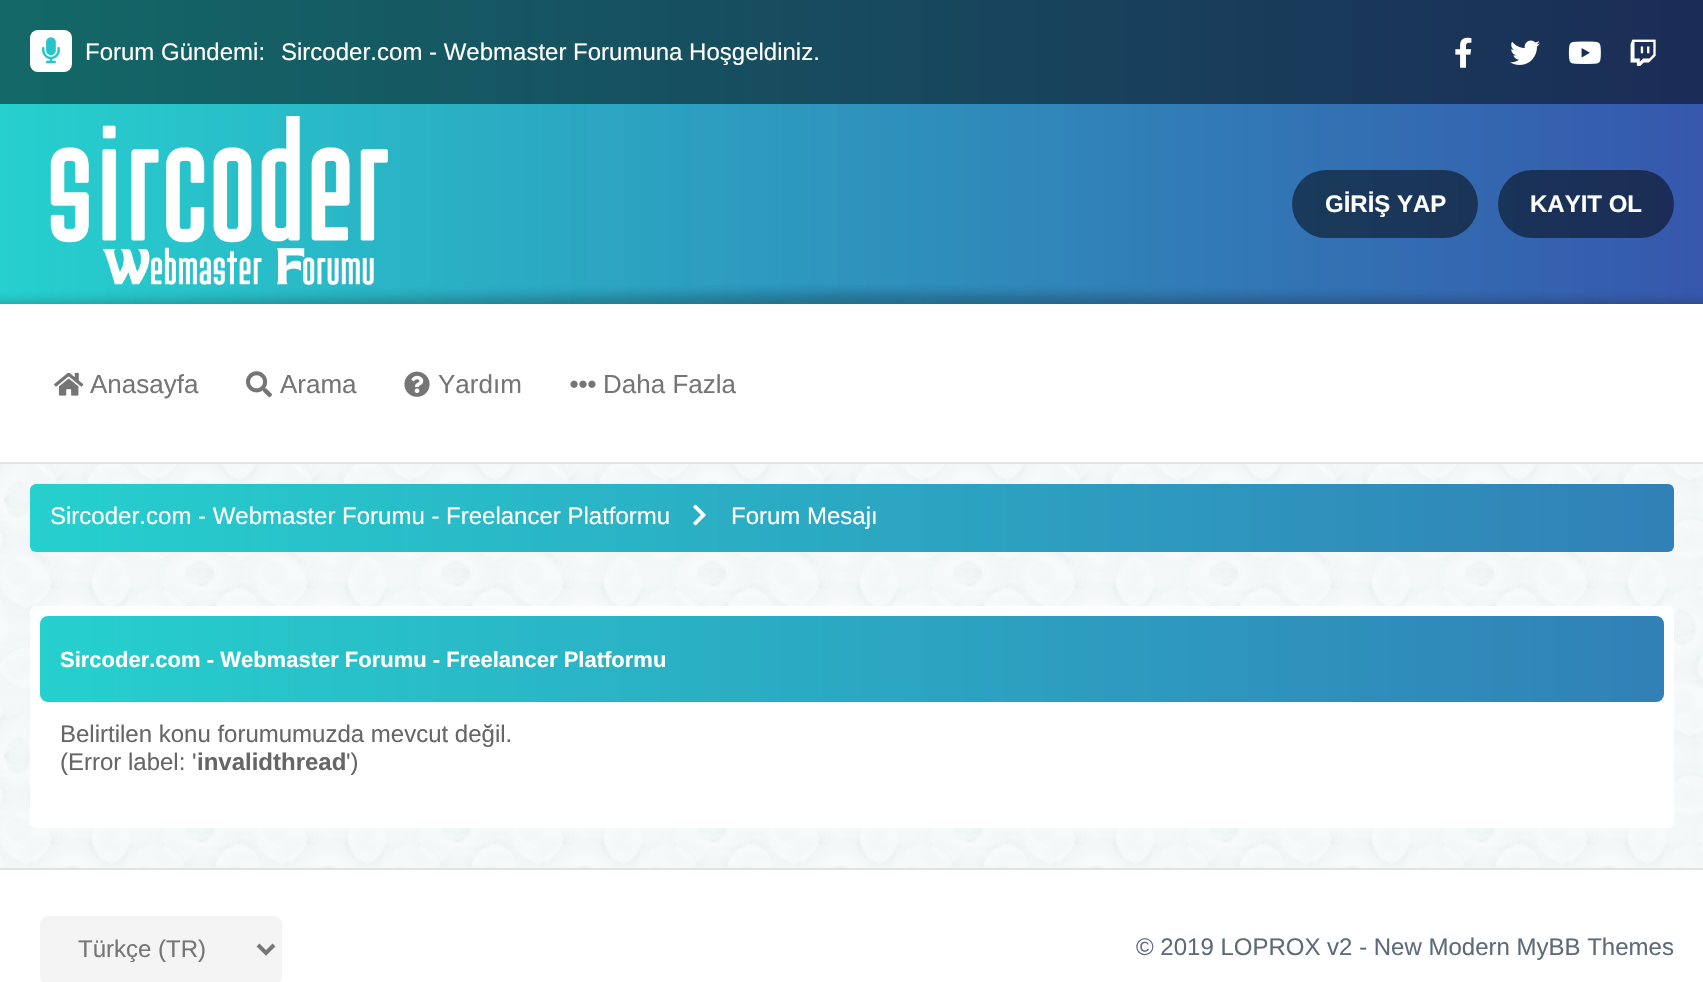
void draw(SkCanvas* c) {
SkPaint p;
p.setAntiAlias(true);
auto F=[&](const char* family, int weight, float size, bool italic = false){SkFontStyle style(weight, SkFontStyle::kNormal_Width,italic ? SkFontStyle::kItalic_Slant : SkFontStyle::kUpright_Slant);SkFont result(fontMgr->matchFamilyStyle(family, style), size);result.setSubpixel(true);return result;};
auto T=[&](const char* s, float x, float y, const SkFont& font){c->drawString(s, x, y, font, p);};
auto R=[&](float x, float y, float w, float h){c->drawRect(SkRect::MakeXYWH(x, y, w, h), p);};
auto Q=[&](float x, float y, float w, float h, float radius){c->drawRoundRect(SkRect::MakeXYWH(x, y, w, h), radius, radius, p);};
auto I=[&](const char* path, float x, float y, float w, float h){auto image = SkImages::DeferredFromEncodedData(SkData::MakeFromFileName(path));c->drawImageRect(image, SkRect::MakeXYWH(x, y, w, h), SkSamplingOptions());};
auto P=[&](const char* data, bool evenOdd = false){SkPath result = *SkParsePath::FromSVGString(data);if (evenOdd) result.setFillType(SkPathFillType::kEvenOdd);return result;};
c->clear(0xffffffff);
I("1.png",0,464,1703,404);
{
const SkColor colors[] = {0xff136867,0xff1b2c56};
const float stops[] = {0,1};
const SkPoint ends[] = {{0,52}, {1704,52}};
p.setShader(SkGradientShader::MakeLinear(ends, colors, stops, 2, SkTileMode::kClamp));
p.setAlpha(255);
}
R(0,0,1703,104);
p.setShader(nullptr);
p.setColor(0xffffffff);
Q(30,30,42,42,8);
I("2.png",42,37,18,27);
auto f1 = F("Liberation Sans",400,24);
T("Forum Gündemi:",85,60,f1);
T("Sircoder.com - Webmaster Forumuna Hoşgeldiniz.",281,60,f1);
I("3.png",1455,37,17,31);
I("4.png",1510,40,30,25);
I("5.png",1568,41,33,23);
I("6.png",1630,39,26,27);
{
const SkColor colors[] = {0xff26d0ce,0xff3657ac};
const float stops[] = {0,1};
const SkPoint ends[] = {{0,204}, {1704,204}};
p.setShader(SkGradientShader::MakeLinear(ends, colors, stops, 2, SkTileMode::kClamp));
p.setAlpha(255);
}
R(0,104,1703,200);
I("7.png",50,116,338,169);
p.setShader(nullptr);
p.setColor(0x80000000);
Q(1292,170,186,68,34);
auto f2 = F("Liberation Sans",700,24);
p.setColor(0xffffffff);
T("GİRİŞ YAP",1325,212,f2);
p.setColor(0x80000000);
Q(1498,170,176,68,34);
p.setColor(0xffffffff);
T("KAYIT OL",1530,212,f2);
I("8.png",0,285,1703,19);
p.setColor(0xffe2e2e2);
R(0,462,1703,2);
I("9.png",54,372,30,24);
auto f3 = F("Liberation Sans",400,26);
p.setColor(0xff757575);
T("Anasayfa",90,393,f3);
I("10.png",246,371,26,27);
T("Arama",280,393,f3);
I("11.png",404,371,26,26);
T("Yardım",438,393,f3);
I("12.png",570,380,26,8);
T("Daha Fazla",603,393,f3);
{
const SkColor colors[] = {0xff26d0ce,0xff3180b7};
const float stops[] = {0,1};
const SkPoint ends[] = {{30,518}, {1674,518}};
p.setShader(SkGradientShader::MakeLinear(ends, colors, stops, 2, SkTileMode::kClamp));
p.setAlpha(255);
}
Q(30,484,1644,68,6);
p.setShader(nullptr);
p.setColor(0xffffffff);
T("Sircoder.com - Webmaster Forumu - Freelancer Platformu",50,524,f1);
I("13.png",693,504,13,22);
T("Forum Mesajı",731,524,f1);
Q(30,606,1644,222,6);
{
const SkColor colors[] = {0xff26d0ce,0xff3180b7};
const float stops[] = {0,1};
const SkPoint ends[] = {{40,659}, {1664,659}};
p.setShader(SkGradientShader::MakeLinear(ends, colors, stops, 2, SkTileMode::kClamp));
p.setAlpha(255);
}
Q(40,616,1624,86,8);
auto f4 = F("Liberation Sans",700,22);
p.setShader(nullptr);
p.setColor(0xffffffff);
T("Sircoder.com - Webmaster Forumu - Freelancer Platformu",60,667,f4);
p.setColor(0xff666666);
T("Belirtilen konu forumumuzda mevcut değil.",60,742,f1);
T("(Error label: '",60,770,f1);
T("invalidthread",197,770,f2);
T("')",346,770,f1);
p.setColor(0xffe2e2e2);
R(0,868,1703,2);
p.setColor(0xfff4f4f4);
Q(40,916,242,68,8);
p.setStroke(true);
p.setStrokeWidth(4);
p.setColor(0xff777777);
c->drawPath(P("M258 945l8 8l8-8"),p);
p.setStroke(false);
p.setColor(0xff757575);
T("Türkçe (TR)",78,957,f1);
p.setColor(0xff5d6a79);
T("© 2019 LOPROX v2 - New Modern MyBB Themes",1136,955,f1);
}
